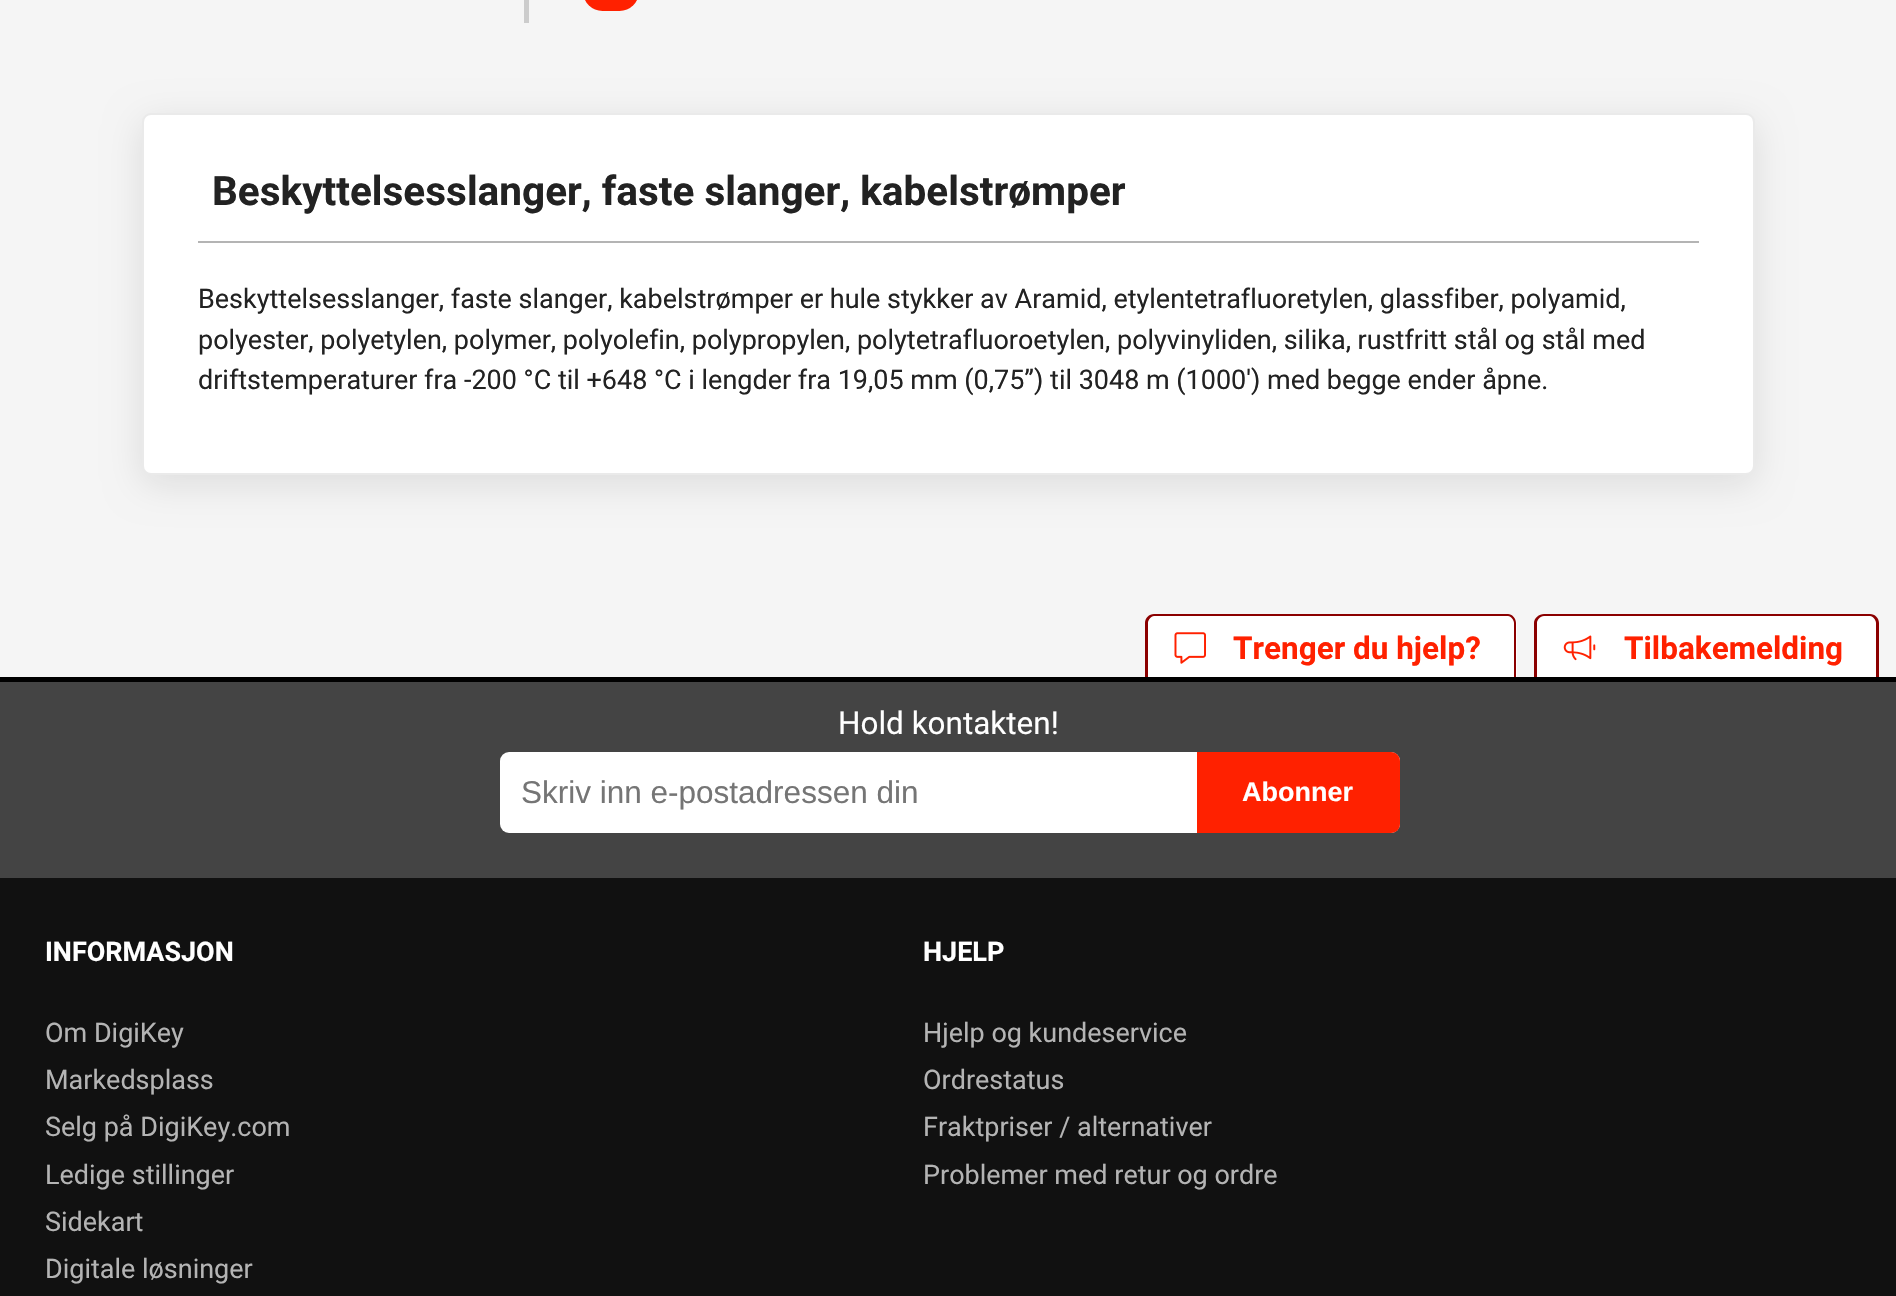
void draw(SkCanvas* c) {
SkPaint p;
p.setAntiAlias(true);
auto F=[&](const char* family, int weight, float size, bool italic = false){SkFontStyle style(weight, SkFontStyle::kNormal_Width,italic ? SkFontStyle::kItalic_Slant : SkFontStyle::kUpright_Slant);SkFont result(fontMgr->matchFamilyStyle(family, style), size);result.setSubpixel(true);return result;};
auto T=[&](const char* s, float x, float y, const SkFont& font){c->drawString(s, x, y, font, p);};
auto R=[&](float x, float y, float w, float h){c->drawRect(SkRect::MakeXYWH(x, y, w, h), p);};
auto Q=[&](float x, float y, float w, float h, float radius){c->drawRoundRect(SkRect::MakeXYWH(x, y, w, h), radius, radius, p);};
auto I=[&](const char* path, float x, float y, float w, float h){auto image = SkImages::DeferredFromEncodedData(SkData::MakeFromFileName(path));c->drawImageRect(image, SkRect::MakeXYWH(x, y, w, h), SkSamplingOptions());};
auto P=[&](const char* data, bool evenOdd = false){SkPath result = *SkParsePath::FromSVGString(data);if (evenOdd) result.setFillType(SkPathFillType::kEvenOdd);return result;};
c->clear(0xfff5f5f5);
p.setColor(0xffcccccc);
R(524,0,5,23);
p.setColor(0xffff2100);
Q(583,-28,56,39,28);
p.setColor(0x1a000000);
p.setMaskFilter(SkMaskFilter::MakeBlur(kNormal_SkBlurStyle, 18));
c->drawRoundRect(SkRect::MakeXYWH(142,122,1613,362),9,9,p);
p.setMaskFilter(nullptr);
p.setColor(0xffffffff);
c->drawRoundRect(SkRect::MakeXYWH(143,114,1611,360),8,8,p);
p.setStroke(true);
p.setStrokeWidth(2);
p.setColor(0xffeaeaea);
c->drawRoundRect(SkRect::MakeXYWH(143,114,1611,360),8,8,p);
auto f1 = F("Roboto",700,40.5);
p.setStroke(false);
p.setColor(0xff222222);
T("Beskyttelsesslanger, faste slanger, kabelstrømper",212,205,f1);
p.setColor(0xffb4b4b4);
R(198,241,1501,2);
auto f2 = F("Roboto",400,27);
p.setColor(0xff222222);
T("Beskyttelsesslanger, faste slanger, kabelstrømper er hule stykker av Aramid, etylentetrafluoretylen, glassfiber, polyamid,",198,308,f2);
T("polyester, polyetylen, polymer, polyolefin, polypropylen, polytetrafluoroetylen, polyvinyliden, silika, rustfritt stål og stål med",198,349,f2);
T("driftstemperaturer fra -200 °C til +648 °C i lengder fra 19,05 mm (0,75”) til 3048 m (1000') med begge ender åpne.",198,389,f2);
p.setColor(0xff111111);
R(0,878,1896,418);
p.setColor(0xff000000);
R(0,677,1896,5);
p.setColor(0xffffffff);
c->drawPath(P("M1154 614h354c5 0 9 4 9 9v54h-372v-54c0-5 4-9 9-9z"),p);
p.setColor(0xff8b0000);
c->drawPath(P("M1154 614h354c4 0 8 4 8 9v54h-371v-54c0-5 4-9 9-9zm0 2h354c3 0 6 4 6 7v54h-366v-54c0-3 3-7 6-7z",true),p);
I("1.png",1174,632,32,32);
auto f3 = F("Roboto",700,31.5);
p.setColor(0xffff2100);
T("Trenger du hjelp?",1233,659,f3);
p.setColor(0xffffffff);
c->drawPath(P("M1544 614h326c5 0 9 4 9 9v54h-344v-54c0-5 4-9 9-9z"),p);
p.setColor(0xff8b0000);
c->drawPath(P("M1544 614h326c5 0 9 4 9 9v54h-345v-54c0-5 5-9 10-9zm0 2h326c3 0 6 4 6 7v54h-339v-54c0-3 3-7 7-7z",true),p);
I("2.png",1563,635,33,26);
p.setColor(0xffff2100);
T("Tilbakemelding",1624,659,f3);
p.setColor(0xff444444);
R(0,682,1896,196);
auto f4 = F("Roboto",400,31.5);
p.setColor(0xffffffff);
T("Hold kontakten!",838,734,f4);
Q(500,752,900,81,9);
auto f5 = F("Liberation Sans",400,31.5);
p.setColor(0xff757575);
T("Skriv inn e-postadressen din",521,803,f5);
p.setColor(0xffff2100);
c->drawPath(P("M1197 752h194c5 0 9 4 9 9v63c0 5-4 9-9 9h-194z"),p);
auto f6 = F("Liberation Sans",700,27);
p.setColor(0xffffffff);
T("Abonner",1242,801,f6);
auto f7 = F("Roboto",700,27);
T("INFORMASJON",45,961,f7);
p.setColor(0xffb4b4b4);
T("Om DigiKey",45,1042,f2);
T("Markedsplass",45,1089,f2);
T("Selg på DigiKey.com",45,1136,f2);
T("Ledige stillinger",45,1184,f2);
T("Sidekart",45,1231,f2);
T("Digitale løsninger",45,1278,f2);
p.setColor(0xffffffff);
T("HJELP",923,961,f7);
p.setColor(0xffb4b4b4);
T("Hjelp og kundeservice",923,1042,f2);
T("Ordrestatus",923,1089,f2);
T("Fraktpriser / alternativer",923,1136,f2);
T("Problemer med retur og ordre",923,1184,f2);
}
